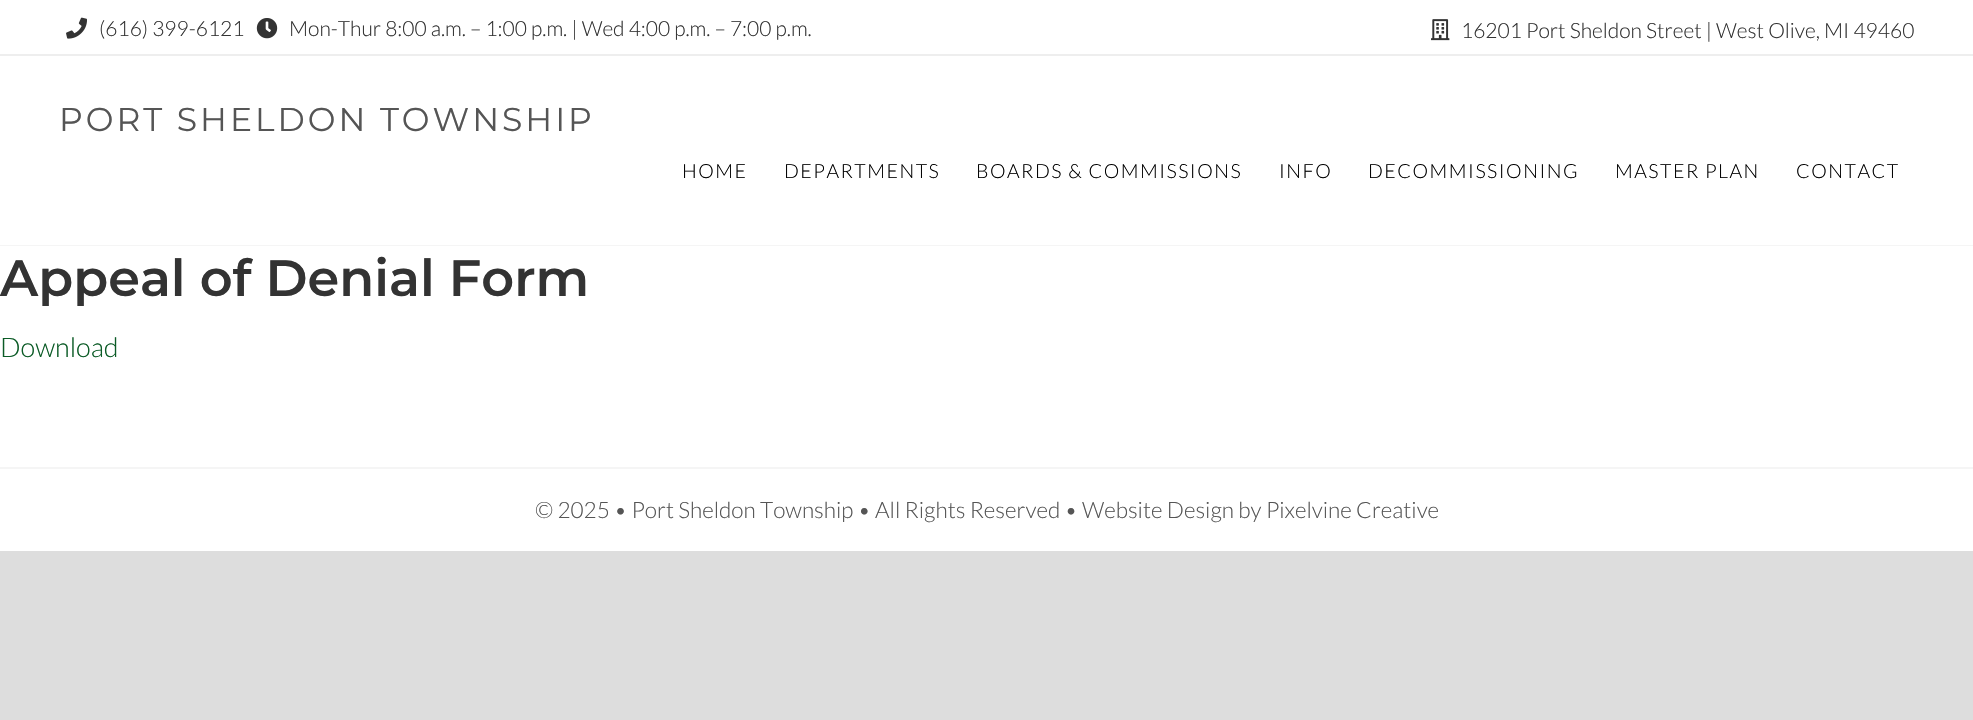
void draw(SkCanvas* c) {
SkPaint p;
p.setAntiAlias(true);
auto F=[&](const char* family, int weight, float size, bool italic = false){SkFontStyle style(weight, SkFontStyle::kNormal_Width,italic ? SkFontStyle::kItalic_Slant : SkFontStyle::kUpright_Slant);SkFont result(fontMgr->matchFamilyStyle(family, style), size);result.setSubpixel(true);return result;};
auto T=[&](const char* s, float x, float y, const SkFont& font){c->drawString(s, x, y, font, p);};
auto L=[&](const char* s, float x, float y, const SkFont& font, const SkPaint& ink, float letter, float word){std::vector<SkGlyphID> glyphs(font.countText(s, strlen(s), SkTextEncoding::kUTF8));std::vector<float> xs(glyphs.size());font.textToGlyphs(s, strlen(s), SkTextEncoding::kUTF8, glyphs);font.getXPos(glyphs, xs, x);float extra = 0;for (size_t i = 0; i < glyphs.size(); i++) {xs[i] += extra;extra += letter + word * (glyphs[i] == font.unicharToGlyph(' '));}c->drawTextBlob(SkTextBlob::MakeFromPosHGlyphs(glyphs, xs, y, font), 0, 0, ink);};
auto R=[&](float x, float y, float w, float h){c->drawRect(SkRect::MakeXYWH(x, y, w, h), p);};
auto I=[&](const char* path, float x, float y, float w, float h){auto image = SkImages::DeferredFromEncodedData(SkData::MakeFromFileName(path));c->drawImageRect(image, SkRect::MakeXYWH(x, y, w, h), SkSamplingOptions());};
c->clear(0xffdddddd);
p.setColor(0xffffffff);
R(0,0,1973,551);
p.setColor(0xffeeeeee);
R(0,54,1973,2);
I("1.png",66,17,21,22);
auto f1 = F("Lato",300,21);
p.setColor(0xff333333);
T("(616) 399-6121",99,36,f1);
I("2.png",256,18,22,21);
T("Mon-Thur 8:00 a.m. – 1:00 p.m. | Wed 4:00 p.m. – 7:00 p.m.",289,36,f1);
I("3.png",1431,19,19,22);
T("16201 Port Sheldon Street | West Olive, MI 49460",1461,38,f1);
p.setColor(0xfff5f5f5);
R(0,245,1973,1);
auto f2 = F("Montserrat",400,33);
p.setColor(0xff555555);
L("PORT SHELDON TOWNSHIP",59,131,f2,p,3,0);
auto f3 = F("Lato",300,19.5);
p.setColor(0xff000000);
L("HOME",682,178,f3,p,1.5,0);
L("DEPARTMENTS",784,178,f3,p,1.5,0);
L("BOARDS & COMMISSIONS",976,178,f3,p,1.5,0);
L("INFO",1279,178,f3,p,1.5,0);
L("DECOMMISSIONING",1368,178,f3,p,1.5,0);
L("MASTER PLAN",1615,178,f3,p,1.5,0);
L("CONTACT",1796,178,f3,p,1.5,0);
auto f4 = F("Montserrat",600,51);
p.setColor(0xff333333);
T("Appeal of Denial Form",0,296,f4);
auto f5 = F("Lato",300,27);
p.setColor(0xff0b5b26);
T("Download",0,357,f5);
p.setColor(0xfff5f5f5);
R(0,467,1973,2);
auto f6 = F("Lato",300,22.5);
p.setColor(0xff555555);
T("© 2025 • Port Sheldon Township • All Rights Reserved • Website Design by Pixelvine Creative",535,518,f6);
}
